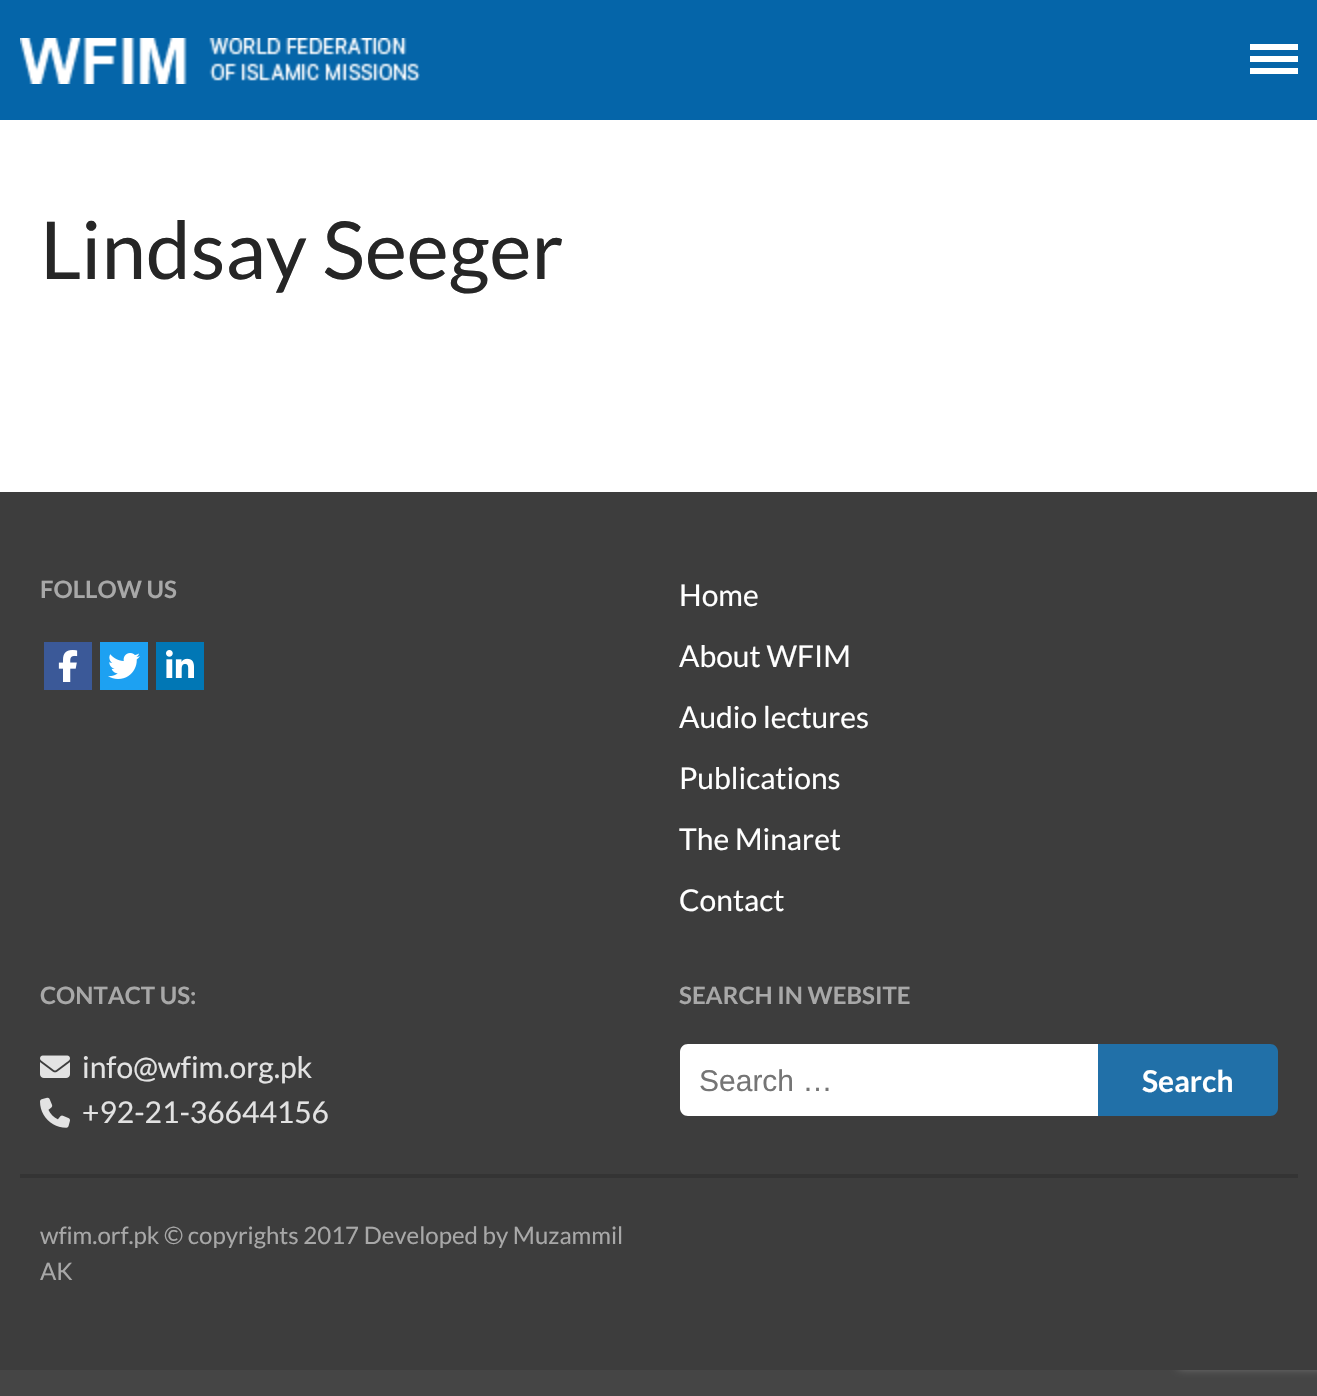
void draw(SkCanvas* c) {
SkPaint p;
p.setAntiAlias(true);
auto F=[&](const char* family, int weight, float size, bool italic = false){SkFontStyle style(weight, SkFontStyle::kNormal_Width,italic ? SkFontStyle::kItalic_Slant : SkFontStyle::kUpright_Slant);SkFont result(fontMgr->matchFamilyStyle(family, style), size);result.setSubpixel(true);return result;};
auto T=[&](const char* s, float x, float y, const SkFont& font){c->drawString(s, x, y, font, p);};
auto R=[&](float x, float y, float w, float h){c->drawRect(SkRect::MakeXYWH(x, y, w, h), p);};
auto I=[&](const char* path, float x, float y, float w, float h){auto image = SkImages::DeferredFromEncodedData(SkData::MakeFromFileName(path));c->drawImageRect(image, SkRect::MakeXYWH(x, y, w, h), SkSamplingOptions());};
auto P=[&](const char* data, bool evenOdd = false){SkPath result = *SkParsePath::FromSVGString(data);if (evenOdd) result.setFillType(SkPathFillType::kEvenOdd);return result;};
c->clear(0xff454545);
p.setColor(0xffffffff);
R(0,120,1317,372);
p.setColor(0xff0565a9);
R(0,0,1317,120);
I("1.png",20,38,400,46);
p.setColor(0xffffffff);
c->drawPath(P("M1250 44v6h48v-6zm0 12v6h48v-6zm0 12v6h48v-6z"),p);
auto f1 = F("Lato",400,80);
p.setColor(0xff262626);
T("Lindsay Seeger",40,279,f1);
p.setColor(0xff808080);
p.setMaskFilter(SkMaskFilter::MakeBlur(kNormal_SkBlurStyle, 5));
c->drawRoundRect(SkRect::MakeXYWH(1178,1248,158,120),4,4,p);
p.setMaskFilter(nullptr);
p.setColor(0xff3d3d3d);
R(0,492,1317,878);
auto f2 = F("Lato",700,24);
p.setColor(0xffa8a8a8);
T("FOLLOW US",40,598,f2);
p.setColor(0xff3b5998);
R(44,642,48,48);
I("2.png",58,650,20,32);
p.setColor(0xff1da1f2);
R(100,642,48,48);
I("3.png",108,653,32,26);
p.setColor(0xff0177b5);
R(156,642,48,48);
I("4.png",166,650,28,28);
auto f3 = F("Lato",400,30);
p.setColor(0xffffffff);
T("Home",679,606,f3);
T("About WFIM",679,667,f3);
T("Audio lectures",679,728,f3);
T("Publications",679,789,f3);
T("The Minaret",679,850,f3);
T("Contact",679,911,f3);
p.setColor(0xffa8a8a8);
T("CONTACT US:",40,1004,f2);
I("5.png",40,1055,30,23);
p.setColor(0xffe2e2e2);
T("info@wfim.org.pk",82,1078,f3);
I("6.png",40,1097,30,31);
T("+92-21-36644156",82,1123,f3);
p.setColor(0xffa8a8a8);
T("SEARCH IN WEBSITE",679,1004,f2);
p.setColor(0xffffffff);
c->drawPath(P("M688 1044h410v72h-410c-4.5 0-8-3.5-8-8v-56c0-4.5 3.5-8 8-8z"),p);
auto f4 = F("Liberation Sans",400,30);
p.setColor(0xff757575);
T("Search …",699,1091,f4);
p.setColor(0xff2170a8);
c->drawPath(P("M1098 1044h172c4.5 0 8 3.5 8 8v56c0 4.5-3.5 8-8 8h-172z"),p);
auto f5 = F("Lato",700,30);
p.setColor(0xffffffff);
T("Search",1142,1092,f5);
p.setColor(0xff343434);
R(20,1174,1278,4);
auto f6 = F("Lato",400,24);
p.setColor(0xffa8a8a8);
T("wfim.orf.pk © copyrights 2017 Developed by Muzammil",40,1244,f6);
T("AK",40,1280,f6);
}
